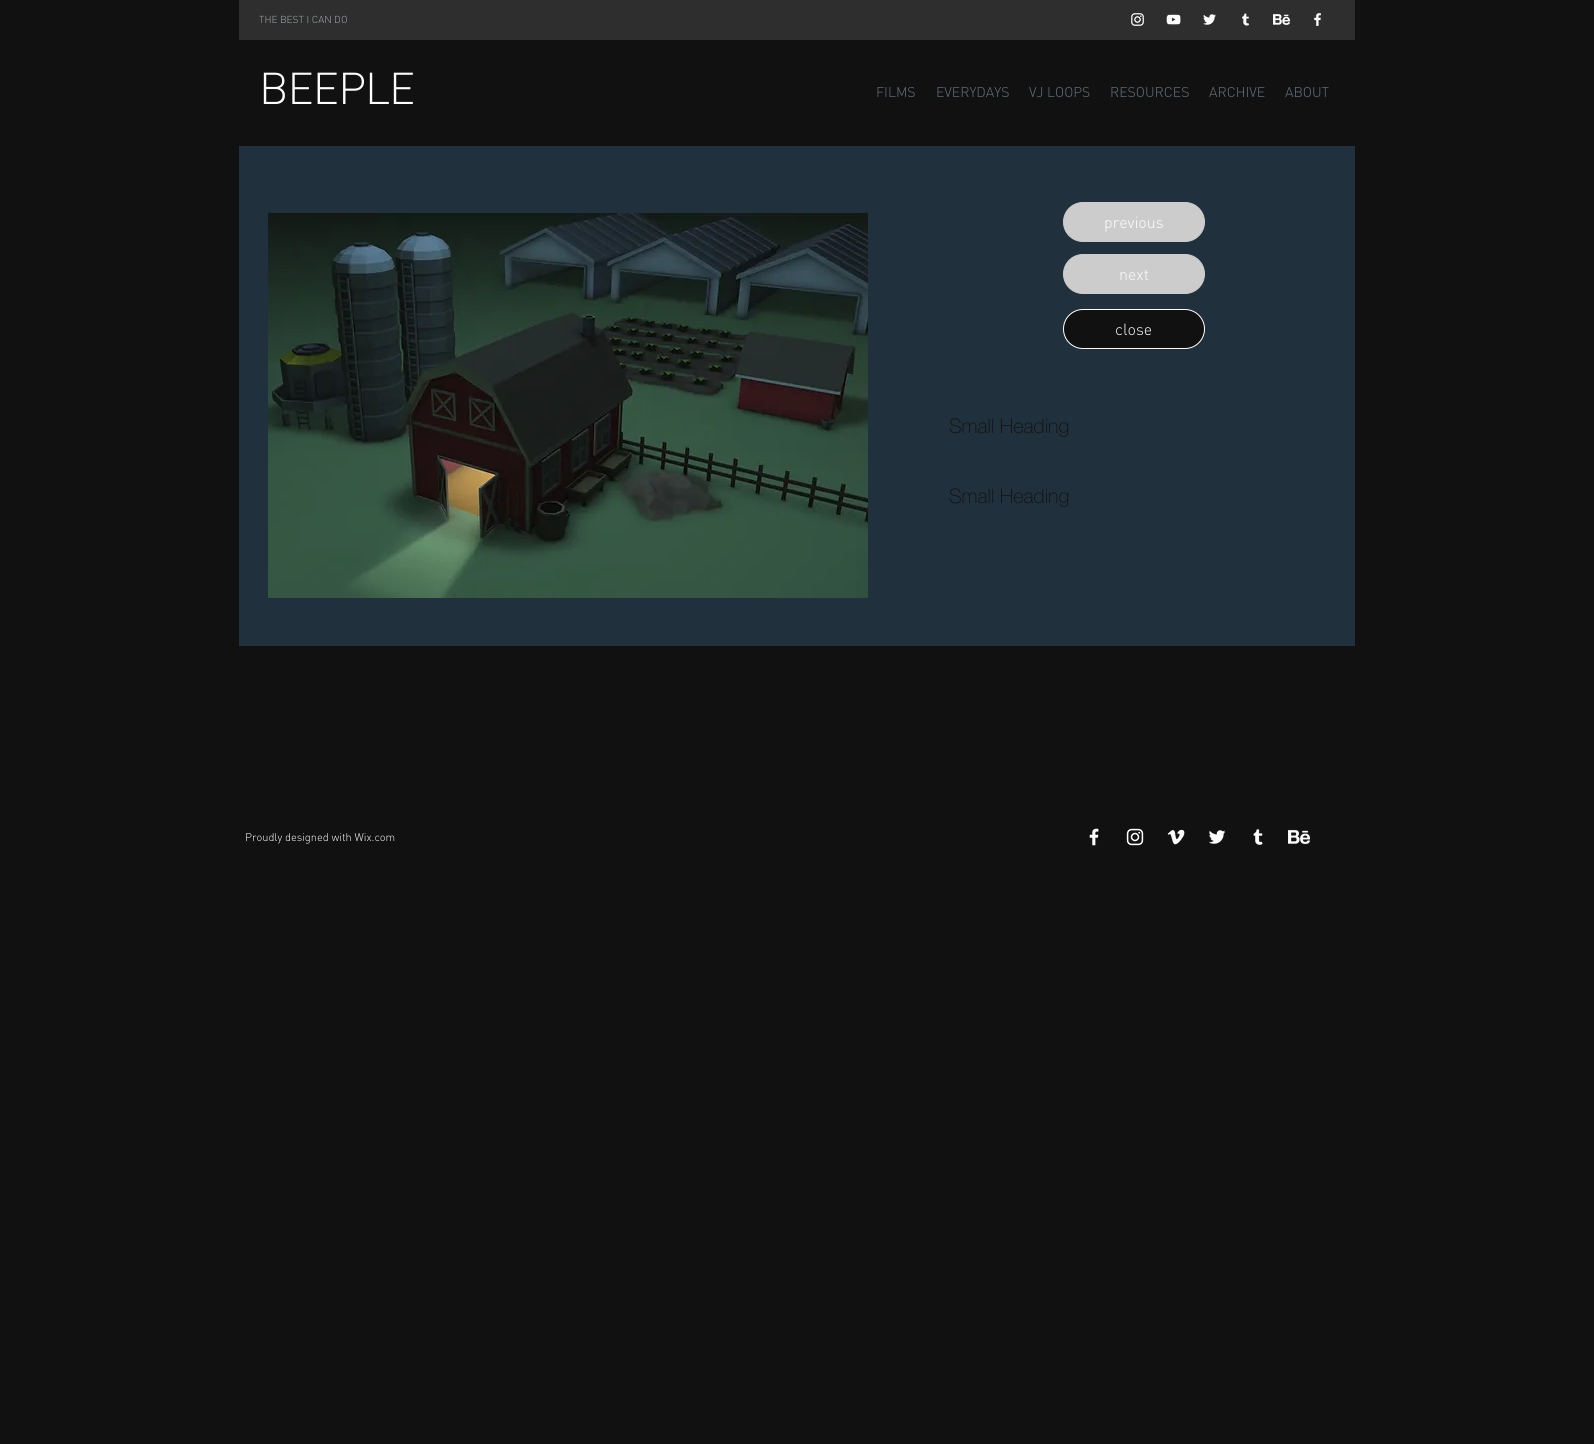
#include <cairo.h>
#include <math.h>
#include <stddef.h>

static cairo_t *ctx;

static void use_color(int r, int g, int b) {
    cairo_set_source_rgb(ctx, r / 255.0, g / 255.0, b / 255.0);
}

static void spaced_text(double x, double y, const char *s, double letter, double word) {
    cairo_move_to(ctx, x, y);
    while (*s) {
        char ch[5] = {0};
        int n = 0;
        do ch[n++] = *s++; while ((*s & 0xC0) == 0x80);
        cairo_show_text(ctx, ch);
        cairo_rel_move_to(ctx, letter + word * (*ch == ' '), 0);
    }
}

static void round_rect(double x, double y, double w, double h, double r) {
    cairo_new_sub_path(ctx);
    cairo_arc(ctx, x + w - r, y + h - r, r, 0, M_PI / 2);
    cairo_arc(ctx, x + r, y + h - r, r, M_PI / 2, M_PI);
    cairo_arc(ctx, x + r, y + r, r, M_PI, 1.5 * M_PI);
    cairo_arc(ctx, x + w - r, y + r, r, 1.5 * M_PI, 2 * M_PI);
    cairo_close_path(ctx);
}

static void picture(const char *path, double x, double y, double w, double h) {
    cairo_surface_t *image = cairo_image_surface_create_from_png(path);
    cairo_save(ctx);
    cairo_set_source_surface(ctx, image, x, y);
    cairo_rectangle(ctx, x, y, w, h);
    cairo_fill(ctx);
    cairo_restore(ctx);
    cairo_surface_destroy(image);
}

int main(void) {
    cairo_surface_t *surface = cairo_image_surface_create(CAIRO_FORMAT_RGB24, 1594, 1444);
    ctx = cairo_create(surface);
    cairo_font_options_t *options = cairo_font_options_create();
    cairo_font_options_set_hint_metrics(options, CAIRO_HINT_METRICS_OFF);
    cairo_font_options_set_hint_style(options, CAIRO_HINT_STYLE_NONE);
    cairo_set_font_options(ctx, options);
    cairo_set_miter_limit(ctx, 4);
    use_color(17, 17, 17);
    cairo_paint(ctx);
    use_color(47, 46, 46);
    cairo_rectangle(ctx, 239, 0, 1116, 40);
    cairo_fill(ctx);
    cairo_select_font_face(ctx, "DIN Light", CAIRO_FONT_SLANT_NORMAL, CAIRO_FONT_WEIGHT_NORMAL);
    cairo_set_font_size(ctx, 10);
    use_color(163, 171, 176);
    cairo_move_to(ctx, 259, 23);
    cairo_show_text(ctx, "THE BEST I CAN DO");
    picture("img1.png", 1131, 13, 13, 13);
    picture("img2.png", 1166, 14, 15, 11);
    picture("img3.png", 1203, 14, 13, 11);
    picture("img4.png", 1242, 13, 7, 13);
    picture("img5.png", 1273, 14, 17, 11);
    picture("img6.png", 1314, 13, 7, 13);
    cairo_set_font_size(ctx, 44);
    use_color(255, 255, 255);
    spaced_text(259, 104, "BEEPLE", -1, 0);
    cairo_set_font_size(ctx, 14);
    use_color(102, 115, 124);
    cairo_move_to(ctx, 876, 97);
    cairo_show_text(ctx, "FILMS");
    cairo_move_to(ctx, 936, 97);
    cairo_show_text(ctx, "EVERYDAYS");
    cairo_move_to(ctx, 1029, 97);
    cairo_show_text(ctx, "VJ LOOPS");
    cairo_move_to(ctx, 1110, 97);
    cairo_show_text(ctx, "RESOURCES");
    cairo_move_to(ctx, 1209, 97);
    cairo_show_text(ctx, "ARCHIVE");
    cairo_move_to(ctx, 1285, 97);
    cairo_show_text(ctx, "ABOUT");
    use_color(32, 48, 60);
    cairo_rectangle(ctx, 239, 146, 1116, 500);
    cairo_fill(ctx);
    picture("img7.png", 268, 213, 600, 385);
    use_color(204, 204, 204);
    round_rect(1063.5, 202.5, 141, 39, 19.5);
    cairo_fill_preserve(ctx);
    cairo_set_line_width(ctx, 1);
    cairo_stroke(ctx);
    cairo_set_font_size(ctx, 16);
    use_color(255, 255, 255);
    cairo_move_to(ctx, 1104, 228);
    cairo_show_text(ctx, "previous");
    use_color(204, 204, 204);
    round_rect(1063.5, 254.5, 141, 39, 19.5);
    cairo_fill_preserve(ctx);
    cairo_stroke(ctx);
    use_color(255, 255, 255);
    cairo_move_to(ctx, 1119, 280);
    cairo_show_text(ctx, "next");
    use_color(17, 17, 17);
    round_rect(1063.5, 309.5, 141, 39, 19.5);
    cairo_fill_preserve(ctx);
    use_color(255, 255, 255);
    cairo_stroke(ctx);
    cairo_move_to(ctx, 1115, 335);
    cairo_show_text(ctx, "close");
    cairo_select_font_face(ctx, "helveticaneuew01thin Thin", CAIRO_FONT_SLANT_NORMAL, CAIRO_FONT_WEIGHT_NORMAL);
    cairo_set_font_size(ctx, 20);
    use_color(17, 17, 17);
    cairo_move_to(ctx, 949, 433);
    cairo_show_text(ctx, "Small Heading");
    cairo_move_to(ctx, 949, 503);
    cairo_show_text(ctx, "Small Heading");
    cairo_select_font_face(ctx, "DIN Light", CAIRO_FONT_SLANT_NORMAL, CAIRO_FONT_WEIGHT_NORMAL);
    cairo_set_font_size(ctx, 11);
    use_color(255, 255, 255);
    cairo_move_to(ctx, 245, 841);
    cairo_show_text(ctx, "Proudly designed with Wix.com");
    picture("img8.png", 1089, 828, 10, 18);
    picture("img9.png", 1126, 828, 18, 18);
    picture("img10.png", 1167, 829, 18, 16);
    picture("img11.png", 1209, 830, 17, 14);
    picture("img12.png", 1253, 829, 10, 16);
    picture("img13.png", 1288, 829, 22, 16);
    cairo_surface_write_to_png(surface, "result.png");
    cairo_font_options_destroy(options);
    cairo_destroy(ctx);
    cairo_surface_destroy(surface);
    return 0;
}
